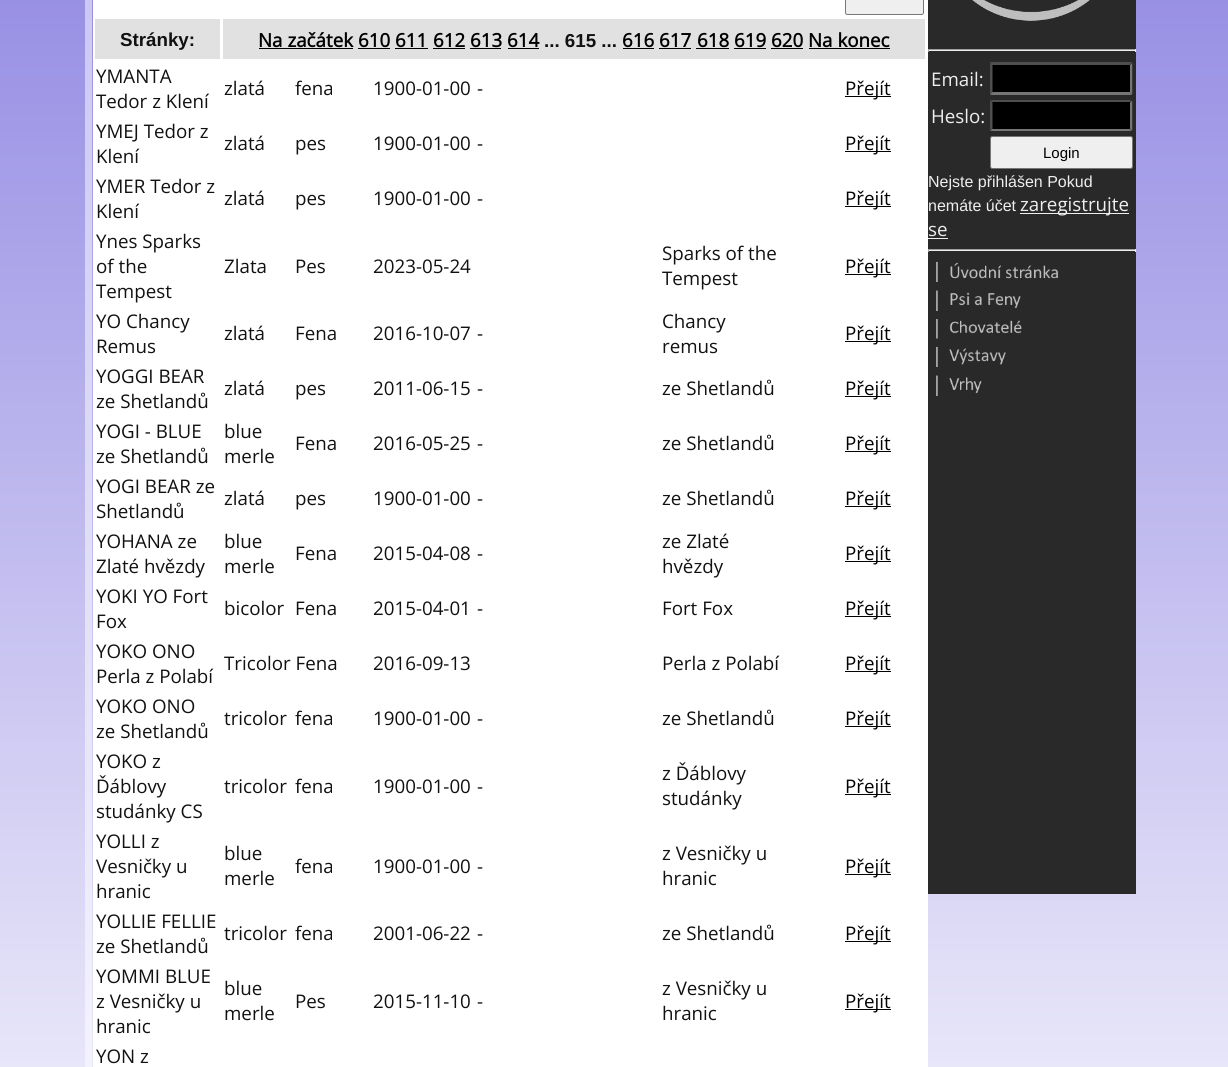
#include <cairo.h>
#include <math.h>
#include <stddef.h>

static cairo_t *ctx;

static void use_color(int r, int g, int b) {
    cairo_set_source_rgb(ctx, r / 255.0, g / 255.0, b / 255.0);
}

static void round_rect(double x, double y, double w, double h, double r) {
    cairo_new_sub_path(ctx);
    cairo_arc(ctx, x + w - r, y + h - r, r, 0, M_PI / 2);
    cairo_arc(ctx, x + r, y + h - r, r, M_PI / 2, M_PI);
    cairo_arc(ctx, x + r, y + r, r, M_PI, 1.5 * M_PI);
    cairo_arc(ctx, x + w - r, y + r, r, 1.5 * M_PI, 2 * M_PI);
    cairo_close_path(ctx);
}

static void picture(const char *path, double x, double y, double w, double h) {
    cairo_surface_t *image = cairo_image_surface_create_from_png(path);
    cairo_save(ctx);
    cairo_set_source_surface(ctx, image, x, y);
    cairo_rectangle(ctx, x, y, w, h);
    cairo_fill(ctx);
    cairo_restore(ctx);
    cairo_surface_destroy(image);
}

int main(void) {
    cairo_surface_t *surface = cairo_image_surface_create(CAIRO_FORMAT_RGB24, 1228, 1067);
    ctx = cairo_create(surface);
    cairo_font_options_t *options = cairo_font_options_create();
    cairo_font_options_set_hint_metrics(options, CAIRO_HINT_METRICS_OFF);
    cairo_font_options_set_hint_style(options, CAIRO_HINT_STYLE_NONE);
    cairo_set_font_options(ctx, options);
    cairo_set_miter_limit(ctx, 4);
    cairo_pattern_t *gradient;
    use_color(255, 255, 255);
    cairo_paint(ctx);
    gradient = cairo_pattern_create_linear(614, -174, 614, 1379);
    cairo_pattern_add_color_stop_rgba(gradient, 0, 0.549, 0.51, 0.882, 1);
    cairo_pattern_add_color_stop_rgba(gradient, 1, 1, 1, 1, 1);
    cairo_set_source(ctx, gradient);
    cairo_pattern_destroy(gradient);
    cairo_rectangle(ctx, 0, 0, 1228, 1067);
    cairo_fill(ctx);
    cairo_set_source_rgba(ctx, 1, 1, 1, 0.5);
    cairo_new_path(ctx);
    cairo_move_to(ctx, 85, -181);
    cairo_line_to(ctx, 85, 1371);
    cairo_line_to(ctx, 92, 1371);
    cairo_line_to(ctx, 92, -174);
    cairo_line_to(ctx, 920, -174);
    cairo_line_to(ctx, 920, -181);
    cairo_close_path(ctx);
    cairo_fill(ctx);
    use_color(255, 255, 255);
    cairo_rectangle(ctx, 93, 0, 835, 1067);
    cairo_fill(ctx);
    use_color(239, 239, 239);
    round_rect(845.5, -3.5, 78, 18, 2);
    cairo_fill_preserve(ctx);
    use_color(118, 118, 118);
    cairo_set_line_width(ctx, 1);
    cairo_stroke(ctx);
    use_color(225, 225, 225);
    cairo_rectangle(ctx, 95, 19, 125, 40);
    cairo_fill(ctx);
    cairo_select_font_face(ctx, "Liberation Sans", CAIRO_FONT_SLANT_NORMAL, CAIRO_FONT_WEIGHT_BOLD);
    cairo_set_font_size(ctx, 18.75);
    use_color(17, 17, 17);
    cairo_move_to(ctx, 120, 46);
    cairo_show_text(ctx, "Stránky:");
    use_color(225, 225, 225);
    cairo_rectangle(ctx, 223, 19, 702, 40);
    cairo_fill(ctx);
    cairo_select_font_face(ctx, "Open Sans", CAIRO_FONT_SLANT_NORMAL, CAIRO_FONT_WEIGHT_BOLD);
    use_color(0, 0, 0);
    cairo_move_to(ctx, 258, 47);
    cairo_show_text(ctx, "Na začátek");
    cairo_rectangle(ctx, 259, 48, 94, 1);
    cairo_fill(ctx);
    cairo_move_to(ctx, 358, 47);
    cairo_show_text(ctx, "610");
    cairo_rectangle(ctx, 358, 48, 32, 1);
    cairo_fill(ctx);
    cairo_move_to(ctx, 395, 47);
    cairo_show_text(ctx, "611");
    cairo_rectangle(ctx, 395, 48, 33, 1);
    cairo_fill(ctx);
    cairo_move_to(ctx, 433, 47);
    cairo_show_text(ctx, "612");
    cairo_rectangle(ctx, 433, 48, 32, 1);
    cairo_fill(ctx);
    cairo_move_to(ctx, 470, 47);
    cairo_show_text(ctx, "613");
    cairo_rectangle(ctx, 470, 48, 31, 1);
    cairo_fill(ctx);
    cairo_move_to(ctx, 507, 47);
    cairo_show_text(ctx, "614");
    cairo_rectangle(ctx, 508, 48, 31, 1);
    cairo_fill(ctx);
    cairo_select_font_face(ctx, "Liberation Sans", CAIRO_FONT_SLANT_NORMAL, CAIRO_FONT_WEIGHT_BOLD);
    use_color(17, 17, 17);
    cairo_move_to(ctx, 544, 47);
    cairo_show_text(ctx, "... 615 ...");
    cairo_select_font_face(ctx, "Open Sans", CAIRO_FONT_SLANT_NORMAL, CAIRO_FONT_WEIGHT_BOLD);
    use_color(0, 0, 0);
    cairo_move_to(ctx, 622, 47);
    cairo_show_text(ctx, "616");
    cairo_rectangle(ctx, 623, 48, 31, 1);
    cairo_fill(ctx);
    cairo_move_to(ctx, 659, 47);
    cairo_show_text(ctx, "617");
    cairo_rectangle(ctx, 659, 48, 32, 1);
    cairo_fill(ctx);
    cairo_move_to(ctx, 697, 47);
    cairo_show_text(ctx, "618");
    cairo_rectangle(ctx, 696, 48, 33, 1);
    cairo_fill(ctx);
    cairo_move_to(ctx, 734, 47);
    cairo_show_text(ctx, "619");
    cairo_rectangle(ctx, 734, 48, 32, 1);
    cairo_fill(ctx);
    cairo_move_to(ctx, 771, 47);
    cairo_show_text(ctx, "620");
    cairo_rectangle(ctx, 771, 48, 32, 1);
    cairo_fill(ctx);
    cairo_move_to(ctx, 808, 47);
    cairo_show_text(ctx, "Na konec");
    cairo_rectangle(ctx, 809, 48, 81, 1);
    cairo_fill(ctx);
    cairo_select_font_face(ctx, "Open Sans", CAIRO_FONT_SLANT_NORMAL, CAIRO_FONT_WEIGHT_NORMAL);
    use_color(17, 17, 17);
    cairo_move_to(ctx, 96, 83);
    cairo_show_text(ctx, "YMANTA");
    cairo_move_to(ctx, 96, 108);
    cairo_show_text(ctx, "Tedor z Klení");
    cairo_move_to(ctx, 224, 95);
    cairo_show_text(ctx, "zlatá");
    cairo_move_to(ctx, 295, 95);
    cairo_show_text(ctx, "fena");
    cairo_move_to(ctx, 373, 95);
    cairo_show_text(ctx, "1900-01-00");
    cairo_move_to(ctx, 477, 95);
    cairo_show_text(ctx, "-");
    use_color(0, 0, 0);
    cairo_rectangle(ctx, 845, 96, 46, 1);
    cairo_fill(ctx);
    cairo_move_to(ctx, 845, 95);
    cairo_show_text(ctx, "Přejít");
    use_color(17, 17, 17);
    cairo_move_to(ctx, 96, 138);
    cairo_show_text(ctx, "YMEJ Tedor z");
    cairo_move_to(ctx, 96, 163);
    cairo_show_text(ctx, "Klení");
    cairo_move_to(ctx, 224, 150);
    cairo_show_text(ctx, "zlatá");
    cairo_move_to(ctx, 295, 150);
    cairo_show_text(ctx, "pes");
    cairo_move_to(ctx, 373, 150);
    cairo_show_text(ctx, "1900-01-00");
    cairo_move_to(ctx, 477, 150);
    cairo_show_text(ctx, "-");
    use_color(0, 0, 0);
    cairo_rectangle(ctx, 845, 151, 46, 1);
    cairo_fill(ctx);
    cairo_move_to(ctx, 845, 150);
    cairo_show_text(ctx, "Přejít");
    use_color(17, 17, 17);
    cairo_move_to(ctx, 96, 193);
    cairo_show_text(ctx, "YMER Tedor z");
    cairo_move_to(ctx, 96, 218);
    cairo_show_text(ctx, "Klení");
    cairo_move_to(ctx, 224, 205);
    cairo_show_text(ctx, "zlatá");
    cairo_move_to(ctx, 295, 205);
    cairo_show_text(ctx, "pes");
    cairo_move_to(ctx, 373, 205);
    cairo_show_text(ctx, "1900-01-00");
    cairo_move_to(ctx, 477, 205);
    cairo_show_text(ctx, "-");
    use_color(0, 0, 0);
    cairo_rectangle(ctx, 845, 206, 46, 1);
    cairo_fill(ctx);
    cairo_move_to(ctx, 845, 205);
    cairo_show_text(ctx, "Přejít");
    use_color(17, 17, 17);
    cairo_move_to(ctx, 96, 248);
    cairo_show_text(ctx, "Ynes Sparks");
    cairo_move_to(ctx, 96, 273);
    cairo_show_text(ctx, "of the");
    cairo_move_to(ctx, 96, 298);
    cairo_show_text(ctx, "Tempest");
    cairo_move_to(ctx, 224, 273);
    cairo_show_text(ctx, "Zlata");
    cairo_move_to(ctx, 295, 273);
    cairo_show_text(ctx, "Pes");
    cairo_move_to(ctx, 373, 273);
    cairo_show_text(ctx, "2023-05-24");
    cairo_move_to(ctx, 662, 260);
    cairo_show_text(ctx, "Sparks of the");
    cairo_move_to(ctx, 662, 285);
    cairo_show_text(ctx, "Tempest");
    use_color(0, 0, 0);
    cairo_rectangle(ctx, 845, 274, 46, 1);
    cairo_fill(ctx);
    cairo_move_to(ctx, 845, 273);
    cairo_show_text(ctx, "Přejít");
    use_color(17, 17, 17);
    cairo_move_to(ctx, 96, 328);
    cairo_show_text(ctx, "YO Chancy");
    cairo_move_to(ctx, 96, 353);
    cairo_show_text(ctx, "Remus");
    cairo_move_to(ctx, 224, 340);
    cairo_show_text(ctx, "zlatá");
    cairo_move_to(ctx, 295, 340);
    cairo_show_text(ctx, "Fena");
    cairo_move_to(ctx, 373, 340);
    cairo_show_text(ctx, "2016-10-07");
    cairo_move_to(ctx, 477, 340);
    cairo_show_text(ctx, "-");
    cairo_move_to(ctx, 662, 328);
    cairo_show_text(ctx, "Chancy");
    cairo_move_to(ctx, 662, 353);
    cairo_show_text(ctx, "remus");
    use_color(0, 0, 0);
    cairo_rectangle(ctx, 845, 341, 46, 1);
    cairo_fill(ctx);
    cairo_move_to(ctx, 845, 340);
    cairo_show_text(ctx, "Přejít");
    use_color(17, 17, 17);
    cairo_move_to(ctx, 96, 383);
    cairo_show_text(ctx, "YOGGI BEAR");
    cairo_move_to(ctx, 96, 408);
    cairo_show_text(ctx, "ze Shetlandů");
    cairo_move_to(ctx, 224, 395);
    cairo_show_text(ctx, "zlatá");
    cairo_move_to(ctx, 295, 395);
    cairo_show_text(ctx, "pes");
    cairo_move_to(ctx, 373, 395);
    cairo_show_text(ctx, "2011-06-15");
    cairo_move_to(ctx, 477, 395);
    cairo_show_text(ctx, "-");
    cairo_move_to(ctx, 662, 395);
    cairo_show_text(ctx, "ze Shetlandů");
    use_color(0, 0, 0);
    cairo_rectangle(ctx, 845, 396, 46, 1);
    cairo_fill(ctx);
    cairo_move_to(ctx, 845, 395);
    cairo_show_text(ctx, "Přejít");
    use_color(17, 17, 17);
    cairo_move_to(ctx, 96, 438);
    cairo_show_text(ctx, "YOGI - BLUE");
    cairo_move_to(ctx, 96, 463);
    cairo_show_text(ctx, "ze Shetlandů");
    cairo_move_to(ctx, 224, 438);
    cairo_show_text(ctx, "blue");
    cairo_move_to(ctx, 224, 463);
    cairo_show_text(ctx, "merle");
    cairo_move_to(ctx, 295, 450);
    cairo_show_text(ctx, "Fena");
    cairo_move_to(ctx, 373, 450);
    cairo_show_text(ctx, "2016-05-25");
    cairo_move_to(ctx, 477, 450);
    cairo_show_text(ctx, "-");
    cairo_move_to(ctx, 662, 450);
    cairo_show_text(ctx, "ze Shetlandů");
    use_color(0, 0, 0);
    cairo_rectangle(ctx, 845, 451, 46, 1);
    cairo_fill(ctx);
    cairo_move_to(ctx, 845, 450);
    cairo_show_text(ctx, "Přejít");
    use_color(17, 17, 17);
    cairo_move_to(ctx, 96, 493);
    cairo_show_text(ctx, "YOGI BEAR ze");
    cairo_move_to(ctx, 96, 518);
    cairo_show_text(ctx, "Shetlandů");
    cairo_move_to(ctx, 224, 505);
    cairo_show_text(ctx, "zlatá");
    cairo_move_to(ctx, 295, 505);
    cairo_show_text(ctx, "pes");
    cairo_move_to(ctx, 373, 505);
    cairo_show_text(ctx, "1900-01-00");
    cairo_move_to(ctx, 477, 505);
    cairo_show_text(ctx, "-");
    cairo_move_to(ctx, 662, 505);
    cairo_show_text(ctx, "ze Shetlandů");
    use_color(0, 0, 0);
    cairo_rectangle(ctx, 845, 506, 46, 1);
    cairo_fill(ctx);
    cairo_move_to(ctx, 845, 505);
    cairo_show_text(ctx, "Přejít");
    use_color(17, 17, 17);
    cairo_move_to(ctx, 96, 548);
    cairo_show_text(ctx, "YOHANA ze");
    cairo_move_to(ctx, 96, 573);
    cairo_show_text(ctx, "Zlaté hvězdy");
    cairo_move_to(ctx, 224, 548);
    cairo_show_text(ctx, "blue");
    cairo_move_to(ctx, 224, 573);
    cairo_show_text(ctx, "merle");
    cairo_move_to(ctx, 295, 560);
    cairo_show_text(ctx, "Fena");
    cairo_move_to(ctx, 373, 560);
    cairo_show_text(ctx, "2015-04-08");
    cairo_move_to(ctx, 477, 560);
    cairo_show_text(ctx, "-");
    cairo_move_to(ctx, 662, 548);
    cairo_show_text(ctx, "ze Zlaté");
    cairo_move_to(ctx, 662, 573);
    cairo_show_text(ctx, "hvězdy");
    use_color(0, 0, 0);
    cairo_rectangle(ctx, 845, 561, 46, 1);
    cairo_fill(ctx);
    cairo_move_to(ctx, 845, 560);
    cairo_show_text(ctx, "Přejít");
    use_color(17, 17, 17);
    cairo_move_to(ctx, 96, 603);
    cairo_show_text(ctx, "YOKI YO Fort");
    cairo_move_to(ctx, 96, 628);
    cairo_show_text(ctx, "Fox");
    cairo_move_to(ctx, 224, 615);
    cairo_show_text(ctx, "bicolor");
    cairo_move_to(ctx, 295, 615);
    cairo_show_text(ctx, "Fena");
    cairo_move_to(ctx, 373, 615);
    cairo_show_text(ctx, "2015-04-01");
    cairo_move_to(ctx, 477, 615);
    cairo_show_text(ctx, "-");
    cairo_move_to(ctx, 662, 615);
    cairo_show_text(ctx, "Fort Fox");
    use_color(0, 0, 0);
    cairo_rectangle(ctx, 845, 616, 46, 1);
    cairo_fill(ctx);
    cairo_move_to(ctx, 845, 615);
    cairo_show_text(ctx, "Přejít");
    use_color(17, 17, 17);
    cairo_move_to(ctx, 96, 658);
    cairo_show_text(ctx, "YOKO ONO");
    cairo_move_to(ctx, 96, 683);
    cairo_show_text(ctx, "Perla z Polabí");
    cairo_move_to(ctx, 224, 670);
    cairo_show_text(ctx, "Tricolor Fena");
    cairo_move_to(ctx, 373, 670);
    cairo_show_text(ctx, "2016-09-13");
    cairo_move_to(ctx, 662, 670);
    cairo_show_text(ctx, "Perla z Polabí");
    use_color(0, 0, 0);
    cairo_rectangle(ctx, 845, 671, 46, 1);
    cairo_fill(ctx);
    cairo_move_to(ctx, 845, 670);
    cairo_show_text(ctx, "Přejít");
    use_color(17, 17, 17);
    cairo_move_to(ctx, 96, 713);
    cairo_show_text(ctx, "YOKO ONO");
    cairo_move_to(ctx, 96, 738);
    cairo_show_text(ctx, "ze Shetlandů");
    cairo_move_to(ctx, 224, 725);
    cairo_show_text(ctx, "tricolor");
    cairo_move_to(ctx, 295, 725);
    cairo_show_text(ctx, "fena");
    cairo_move_to(ctx, 373, 725);
    cairo_show_text(ctx, "1900-01-00");
    cairo_move_to(ctx, 477, 725);
    cairo_show_text(ctx, "-");
    cairo_move_to(ctx, 662, 725);
    cairo_show_text(ctx, "ze Shetlandů");
    use_color(0, 0, 0);
    cairo_rectangle(ctx, 845, 726, 46, 1);
    cairo_fill(ctx);
    cairo_move_to(ctx, 845, 725);
    cairo_show_text(ctx, "Přejít");
    use_color(17, 17, 17);
    cairo_move_to(ctx, 96, 768);
    cairo_show_text(ctx, "YOKO z");
    cairo_move_to(ctx, 96, 793);
    cairo_show_text(ctx, "Ďáblovy");
    cairo_move_to(ctx, 96, 818);
    cairo_show_text(ctx, "studánky CS");
    cairo_move_to(ctx, 224, 793);
    cairo_show_text(ctx, "tricolor");
    cairo_move_to(ctx, 295, 793);
    cairo_show_text(ctx, "fena");
    cairo_move_to(ctx, 373, 793);
    cairo_show_text(ctx, "1900-01-00");
    cairo_move_to(ctx, 477, 793);
    cairo_show_text(ctx, "-");
    cairo_move_to(ctx, 662, 780);
    cairo_show_text(ctx, "z Ďáblovy");
    cairo_move_to(ctx, 662, 805);
    cairo_show_text(ctx, "studánky");
    use_color(0, 0, 0);
    cairo_rectangle(ctx, 845, 794, 46, 1);
    cairo_fill(ctx);
    cairo_move_to(ctx, 845, 793);
    cairo_show_text(ctx, "Přejít");
    use_color(17, 17, 17);
    cairo_move_to(ctx, 96, 848);
    cairo_show_text(ctx, "YOLLI z");
    cairo_move_to(ctx, 96, 873);
    cairo_show_text(ctx, "Vesničky u");
    cairo_move_to(ctx, 96, 898);
    cairo_show_text(ctx, "hranic");
    cairo_move_to(ctx, 224, 860);
    cairo_show_text(ctx, "blue");
    cairo_move_to(ctx, 224, 885);
    cairo_show_text(ctx, "merle");
    cairo_move_to(ctx, 295, 873);
    cairo_show_text(ctx, "fena");
    cairo_move_to(ctx, 373, 873);
    cairo_show_text(ctx, "1900-01-00");
    cairo_move_to(ctx, 477, 873);
    cairo_show_text(ctx, "-");
    cairo_move_to(ctx, 662, 860);
    cairo_show_text(ctx, "z Vesničky u");
    cairo_move_to(ctx, 662, 885);
    cairo_show_text(ctx, "hranic");
    use_color(0, 0, 0);
    cairo_rectangle(ctx, 845, 874, 46, 1);
    cairo_fill(ctx);
    cairo_move_to(ctx, 845, 873);
    cairo_show_text(ctx, "Přejít");
    use_color(17, 17, 17);
    cairo_move_to(ctx, 96, 928);
    cairo_show_text(ctx, "YOLLIE FELLIE");
    cairo_move_to(ctx, 96, 953);
    cairo_show_text(ctx, "ze Shetlandů");
    cairo_move_to(ctx, 224, 940);
    cairo_show_text(ctx, "tricolor");
    cairo_move_to(ctx, 295, 940);
    cairo_show_text(ctx, "fena");
    cairo_move_to(ctx, 373, 940);
    cairo_show_text(ctx, "2001-06-22");
    cairo_move_to(ctx, 477, 940);
    cairo_show_text(ctx, "-");
    cairo_move_to(ctx, 662, 940);
    cairo_show_text(ctx, "ze Shetlandů");
    use_color(0, 0, 0);
    cairo_rectangle(ctx, 845, 941, 46, 1);
    cairo_fill(ctx);
    cairo_move_to(ctx, 845, 940);
    cairo_show_text(ctx, "Přejít");
    use_color(17, 17, 17);
    cairo_move_to(ctx, 96, 983);
    cairo_show_text(ctx, "YOMMI BLUE");
    cairo_move_to(ctx, 96, 1008);
    cairo_show_text(ctx, "z Vesničky u");
    cairo_move_to(ctx, 96, 1033);
    cairo_show_text(ctx, "hranic");
    cairo_move_to(ctx, 224, 995);
    cairo_show_text(ctx, "blue");
    cairo_move_to(ctx, 224, 1020);
    cairo_show_text(ctx, "merle");
    cairo_move_to(ctx, 295, 1008);
    cairo_show_text(ctx, "Pes");
    cairo_move_to(ctx, 373, 1008);
    cairo_show_text(ctx, "2015-11-10");
    cairo_move_to(ctx, 477, 1008);
    cairo_show_text(ctx, "-");
    cairo_move_to(ctx, 662, 995);
    cairo_show_text(ctx, "z Vesničky u");
    cairo_move_to(ctx, 662, 1020);
    cairo_show_text(ctx, "hranic");
    use_color(0, 0, 0);
    cairo_rectangle(ctx, 845, 1009, 46, 1);
    cairo_fill(ctx);
    cairo_move_to(ctx, 845, 1008);
    cairo_show_text(ctx, "Přejít");
    use_color(17, 17, 17);
    cairo_move_to(ctx, 96, 1063);
    cairo_show_text(ctx, "YON z");
    use_color(41, 41, 41);
    cairo_rectangle(ctx, 928, 0, 208, 894);
    cairo_fill(ctx);
    picture("img1.png", 972, 0, 118, 21);
    use_color(159, 159, 159);
    cairo_rectangle(ctx, 928, 49, 208, 1);
    cairo_fill(ctx);
    use_color(238, 238, 238);
    cairo_rectangle(ctx, 1135, 49, 1, 3);
    cairo_fill(ctx);
    cairo_rectangle(ctx, 928, 50, 208, 1);
    cairo_fill(ctx);
    use_color(159, 159, 159);
    cairo_rectangle(ctx, 928, 49, 1, 3);
    cairo_fill(ctx);
    use_color(238, 238, 238);
    cairo_move_to(ctx, 931, 86);
    cairo_show_text(ctx, "Email:");
    use_color(0, 0, 0);
    cairo_rectangle(ctx, 990, 63, 143, 32);
    cairo_fill(ctx);
    use_color(79, 79, 79);
    cairo_new_path(ctx);
    cairo_move_to(ctx, 990, 62);
    cairo_line_to(ctx, 1132, 62);
    cairo_line_to(ctx, 1130, 65);
    cairo_line_to(ctx, 992, 65);
    cairo_close_path(ctx);
    cairo_fill(ctx);
    use_color(118, 118, 118);
    cairo_new_path(ctx);
    cairo_move_to(ctx, 1132.5, 62.5);
    cairo_line_to(ctx, 1132.5, 95);
    cairo_line_to(ctx, 1130, 92.5);
    cairo_line_to(ctx, 1130, 65);
    cairo_close_path(ctx);
    cairo_fill(ctx);
    cairo_new_path(ctx);
    cairo_move_to(ctx, 1132, 95);
    cairo_line_to(ctx, 990, 95);
    cairo_line_to(ctx, 992, 92);
    cairo_line_to(ctx, 1130, 92);
    cairo_close_path(ctx);
    cairo_fill(ctx);
    use_color(79, 79, 79);
    cairo_new_path(ctx);
    cairo_move_to(ctx, 990, 95);
    cairo_line_to(ctx, 990, 62.5);
    cairo_line_to(ctx, 992.5, 65);
    cairo_line_to(ctx, 992.5, 92.5);
    cairo_close_path(ctx);
    cairo_fill(ctx);
    use_color(238, 238, 238);
    cairo_move_to(ctx, 931, 123);
    cairo_show_text(ctx, "Heslo:");
    use_color(0, 0, 0);
    cairo_rectangle(ctx, 990, 100, 143, 31);
    cairo_fill(ctx);
    use_color(79, 79, 79);
    cairo_new_path(ctx);
    cairo_move_to(ctx, 990, 100);
    cairo_line_to(ctx, 1132, 100);
    cairo_line_to(ctx, 1130, 102);
    cairo_line_to(ctx, 992, 102);
    cairo_close_path(ctx);
    cairo_fill(ctx);
    use_color(118, 118, 118);
    cairo_new_path(ctx);
    cairo_move_to(ctx, 1132.5, 100);
    cairo_line_to(ctx, 1132.5, 131);
    cairo_line_to(ctx, 1130, 129);
    cairo_line_to(ctx, 1130, 102.5);
    cairo_close_path(ctx);
    cairo_fill(ctx);
    cairo_new_path(ctx);
    cairo_move_to(ctx, 1132, 131);
    cairo_line_to(ctx, 990, 131);
    cairo_line_to(ctx, 992, 129);
    cairo_line_to(ctx, 1130, 129);
    cairo_close_path(ctx);
    cairo_fill(ctx);
    use_color(79, 79, 79);
    cairo_new_path(ctx);
    cairo_move_to(ctx, 990, 131);
    cairo_line_to(ctx, 990, 100);
    cairo_line_to(ctx, 992.5, 102.5);
    cairo_line_to(ctx, 992.5, 129);
    cairo_close_path(ctx);
    cairo_fill(ctx);
    use_color(239, 239, 239);
    round_rect(990.5, 136.5, 142, 32, 2);
    cairo_fill_preserve(ctx);
    use_color(118, 118, 118);
    cairo_stroke(ctx);
    cairo_select_font_face(ctx, "Liberation Sans", CAIRO_FONT_SLANT_NORMAL, CAIRO_FONT_WEIGHT_NORMAL);
    cairo_set_font_size(ctx, 15);
    use_color(0, 0, 0);
    cairo_move_to(ctx, 1043, 158);
    cairo_show_text(ctx, "Login");
    cairo_set_font_size(ctx, 16);
    use_color(238, 238, 238);
    cairo_move_to(ctx, 928, 187);
    cairo_show_text(ctx, "Nejste přihlášen Pokud");
    cairo_move_to(ctx, 928, 211);
    cairo_show_text(ctx, "nemáte účet");
    cairo_rectangle(ctx, 1020, 213, 109, 1);
    cairo_fill(ctx);
    cairo_select_font_face(ctx, "Open Sans", CAIRO_FONT_SLANT_NORMAL, CAIRO_FONT_WEIGHT_NORMAL);
    cairo_set_font_size(ctx, 18.75);
    cairo_move_to(ctx, 1020, 211);
    cairo_show_text(ctx, "zaregistrujte");
    cairo_move_to(ctx, 928, 236);
    cairo_show_text(ctx, "se");
    cairo_rectangle(ctx, 928, 238, 20, 1);
    cairo_fill(ctx);
    use_color(159, 159, 159);
    cairo_rectangle(ctx, 928, 249, 208, 1);
    cairo_fill(ctx);
    use_color(238, 238, 238);
    cairo_rectangle(ctx, 1135, 249, 1, 3);
    cairo_fill(ctx);
    cairo_rectangle(ctx, 928, 250, 208, 1);
    cairo_fill(ctx);
    use_color(159, 159, 159);
    cairo_rectangle(ctx, 928, 249, 1, 3);
    cairo_fill(ctx);
    picture("img2.png", 936, 261, 122, 21);
    picture("img3.png", 936, 290, 85, 21);
    picture("img4.png", 936, 319, 86, 20);
    picture("img5.png", 936, 346, 70, 21);
    picture("img6.png", 936, 375, 46, 21);
    cairo_surface_write_to_png(surface, "result.png");
    cairo_font_options_destroy(options);
    cairo_destroy(ctx);
    cairo_surface_destroy(surface);
    return 0;
}
